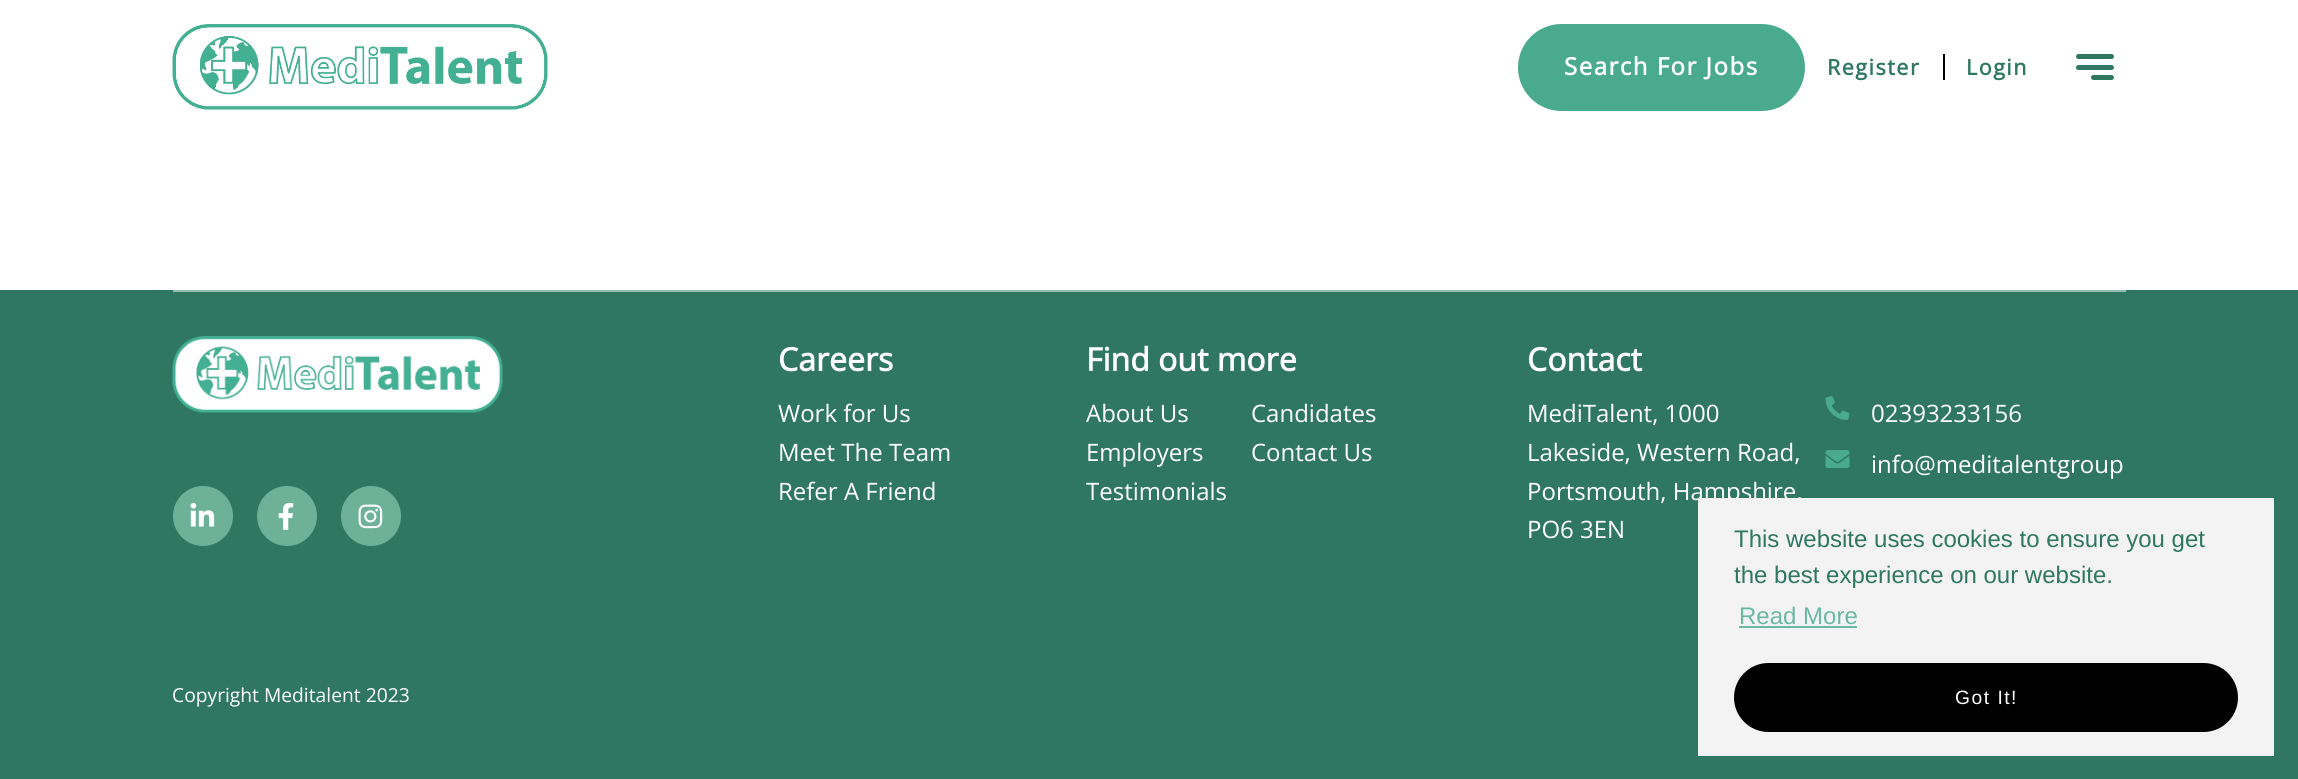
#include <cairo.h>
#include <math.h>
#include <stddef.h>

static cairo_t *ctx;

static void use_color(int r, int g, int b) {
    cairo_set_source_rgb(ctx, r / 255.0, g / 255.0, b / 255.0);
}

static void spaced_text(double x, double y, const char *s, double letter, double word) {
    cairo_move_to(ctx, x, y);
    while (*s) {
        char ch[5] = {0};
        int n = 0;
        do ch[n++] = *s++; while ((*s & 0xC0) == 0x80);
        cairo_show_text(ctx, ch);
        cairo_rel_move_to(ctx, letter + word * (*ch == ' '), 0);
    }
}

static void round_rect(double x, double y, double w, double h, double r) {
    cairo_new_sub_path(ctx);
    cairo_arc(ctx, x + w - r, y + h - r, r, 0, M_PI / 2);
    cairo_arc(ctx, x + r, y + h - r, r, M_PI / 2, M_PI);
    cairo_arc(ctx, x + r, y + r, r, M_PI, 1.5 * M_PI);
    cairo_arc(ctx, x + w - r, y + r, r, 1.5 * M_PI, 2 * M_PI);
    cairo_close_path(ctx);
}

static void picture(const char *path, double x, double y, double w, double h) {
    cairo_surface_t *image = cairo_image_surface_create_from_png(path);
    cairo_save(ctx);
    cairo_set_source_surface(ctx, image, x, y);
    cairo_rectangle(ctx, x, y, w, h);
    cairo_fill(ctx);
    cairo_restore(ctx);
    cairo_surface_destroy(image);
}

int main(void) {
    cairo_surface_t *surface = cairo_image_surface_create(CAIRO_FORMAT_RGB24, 2298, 779);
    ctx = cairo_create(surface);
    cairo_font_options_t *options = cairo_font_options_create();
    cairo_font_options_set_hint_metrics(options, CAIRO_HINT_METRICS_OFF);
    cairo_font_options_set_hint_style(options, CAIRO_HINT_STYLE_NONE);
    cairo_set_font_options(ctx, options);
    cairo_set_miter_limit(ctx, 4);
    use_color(255, 255, 255);
    cairo_paint(ctx);
    picture("img1.png", 172, 24, 376, 86);
    use_color(73, 170, 142);
    round_rect(1519, 25, 285, 85, 42.5);
    cairo_fill_preserve(ctx);
    cairo_stroke(ctx);
    cairo_select_font_face(ctx, "Open Sans", CAIRO_FONT_SLANT_NORMAL, CAIRO_FONT_WEIGHT_BOLD);
    cairo_set_font_size(ctx, 24);
    use_color(255, 255, 255);
    spaced_text(1564, 75, "Search For Jobs", 1.5, 0);
    cairo_set_font_size(ctx, 21.5);
    use_color(47, 119, 97);
    spaced_text(1827, 75, "Register", 1.5, 0);
    use_color(0, 0, 0);
    cairo_rectangle(ctx, 1943, 54, 2, 26);
    cairo_fill(ctx);
    use_color(47, 119, 97);
    spaced_text(1966, 75, "Login", 1.5, 0);
    round_rect(2076, 65, 38, 5, 2.5);
    cairo_fill(ctx);
    round_rect(2076, 54, 38, 5, 2.5);
    cairo_fill(ctx);
    round_rect(2091, 75, 23, 5, 2.5);
    cairo_fill(ctx);
    cairo_rectangle(ctx, 0, 290, 2298, 489);
    cairo_fill(ctx);
    use_color(151, 187, 176);
    cairo_rectangle(ctx, 173, 290, 1953, 2);
    cairo_fill(ctx);
    picture("img2.png", 172, 336, 331, 77);
    use_color(108, 177, 152);
    cairo_arc(ctx, 203, 516, 29, 0, 2 * M_PI);
    cairo_fill_preserve(ctx);
    cairo_stroke(ctx);
    picture("img3.png", 190, 502, 25, 25);
    cairo_arc(ctx, 287, 516, 29, 0, 2 * M_PI);
    cairo_fill_preserve(ctx);
    cairo_stroke(ctx);
    picture("img4.png", 278, 502, 16, 28);
    cairo_arc(ctx, 371, 516, 29, 0, 2 * M_PI);
    cairo_fill_preserve(ctx);
    cairo_stroke(ctx);
    picture("img5.png", 358, 504, 25, 25);
    cairo_set_font_size(ctx, 32);
    use_color(255, 255, 255);
    cairo_move_to(ctx, 778, 371);
    cairo_show_text(ctx, "Careers");
    cairo_select_font_face(ctx, "Open Sans", CAIRO_FONT_SLANT_NORMAL, CAIRO_FONT_WEIGHT_NORMAL);
    cairo_set_font_size(ctx, 24);
    cairo_move_to(ctx, 778, 422);
    cairo_show_text(ctx, "Work for Us");
    cairo_move_to(ctx, 778, 461);
    cairo_show_text(ctx, "Meet The Team");
    cairo_move_to(ctx, 778, 500);
    cairo_show_text(ctx, "Refer A Friend");
    cairo_select_font_face(ctx, "Open Sans", CAIRO_FONT_SLANT_NORMAL, CAIRO_FONT_WEIGHT_BOLD);
    cairo_set_font_size(ctx, 32);
    cairo_move_to(ctx, 1086, 371);
    cairo_show_text(ctx, "Find out more");
    cairo_select_font_face(ctx, "Open Sans", CAIRO_FONT_SLANT_NORMAL, CAIRO_FONT_WEIGHT_NORMAL);
    cairo_set_font_size(ctx, 24);
    cairo_move_to(ctx, 1086, 422);
    cairo_show_text(ctx, "About Us");
    cairo_move_to(ctx, 1251, 422);
    cairo_show_text(ctx, "Candidates");
    cairo_move_to(ctx, 1086, 461);
    cairo_show_text(ctx, "Employers");
    cairo_move_to(ctx, 1251, 461);
    cairo_show_text(ctx, "Contact Us");
    cairo_move_to(ctx, 1086, 500);
    cairo_show_text(ctx, "Testimonials");
    cairo_select_font_face(ctx, "Open Sans", CAIRO_FONT_SLANT_NORMAL, CAIRO_FONT_WEIGHT_BOLD);
    cairo_set_font_size(ctx, 32);
    cairo_move_to(ctx, 1527, 371);
    cairo_show_text(ctx, "Contact");
    cairo_select_font_face(ctx, "Open Sans", CAIRO_FONT_SLANT_NORMAL, CAIRO_FONT_WEIGHT_NORMAL);
    cairo_set_font_size(ctx, 24);
    cairo_move_to(ctx, 1527, 422);
    cairo_show_text(ctx, "MediTalent, 1000");
    cairo_move_to(ctx, 1527, 461);
    cairo_show_text(ctx, "Lakeside, Western Road,");
    cairo_move_to(ctx, 1527, 500);
    cairo_show_text(ctx, "Portsmouth, Hampshire,");
    cairo_move_to(ctx, 1527, 538);
    cairo_show_text(ctx, "PO6 3EN");
    picture("img6.png", 1825, 396, 25, 24);
    cairo_move_to(ctx, 1871, 422);
    cairo_show_text(ctx, "02393233156");
    picture("img7.png", 1825, 450, 25, 18);
    cairo_move_to(ctx, 1871, 473);
    cairo_show_text(ctx, "info@meditalentgroup");
    cairo_set_font_size(ctx, 19.25);
    cairo_move_to(ctx, 172, 702);
    cairo_show_text(ctx, "Copyright Meditalent 2023");
    use_color(243, 243, 243);
    cairo_rectangle(ctx, 1698, 498, 576, 258);
    cairo_fill(ctx);
    cairo_select_font_face(ctx, "Liberation Sans", CAIRO_FONT_SLANT_NORMAL, CAIRO_FONT_WEIGHT_NORMAL);
    cairo_set_font_size(ctx, 24);
    use_color(47, 119, 97);
    cairo_move_to(ctx, 1734, 547);
    cairo_show_text(ctx, "This website uses cookies to ensure you get");
    cairo_move_to(ctx, 1734, 583);
    cairo_show_text(ctx, "the best experience on our website.");
    use_color(107, 185, 162);
    cairo_move_to(ctx, 1739, 624);
    cairo_show_text(ctx, "Read More");
    cairo_rectangle(ctx, 1739, 626, 118, 2);
    cairo_fill(ctx);
    use_color(0, 0, 0);
    round_rect(1734, 663, 504, 69, 34.5);
    cairo_fill(ctx);
    cairo_set_font_size(ctx, 19.25);
    use_color(255, 255, 255);
    spaced_text(1955, 704, "Got It!", 1.5, 0);
    cairo_surface_write_to_png(surface, "result.png");
    cairo_font_options_destroy(options);
    cairo_destroy(ctx);
    cairo_surface_destroy(surface);
    return 0;
}
